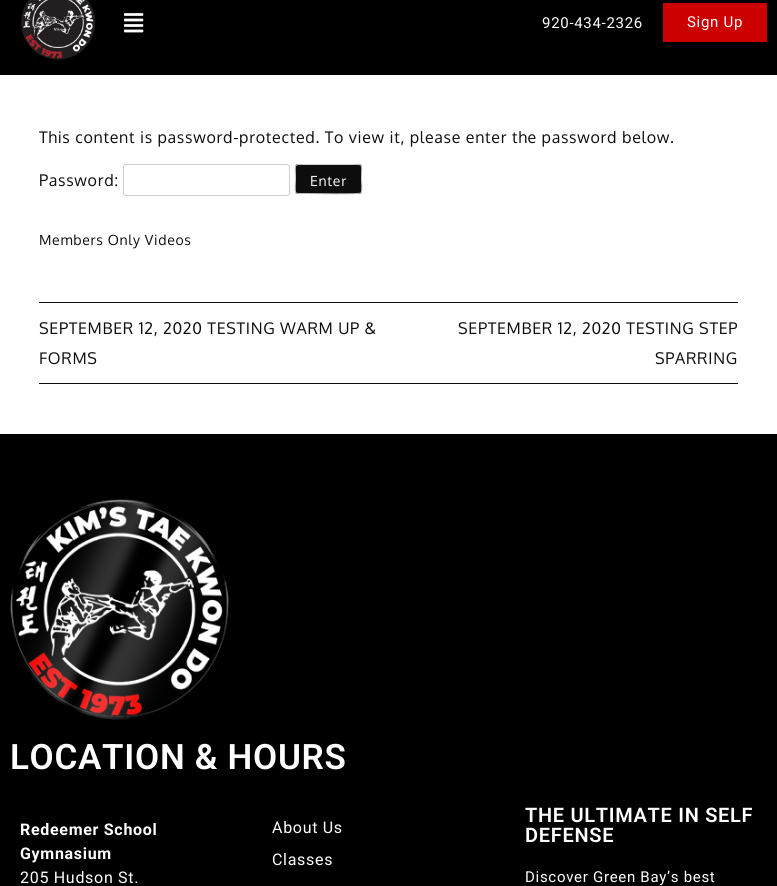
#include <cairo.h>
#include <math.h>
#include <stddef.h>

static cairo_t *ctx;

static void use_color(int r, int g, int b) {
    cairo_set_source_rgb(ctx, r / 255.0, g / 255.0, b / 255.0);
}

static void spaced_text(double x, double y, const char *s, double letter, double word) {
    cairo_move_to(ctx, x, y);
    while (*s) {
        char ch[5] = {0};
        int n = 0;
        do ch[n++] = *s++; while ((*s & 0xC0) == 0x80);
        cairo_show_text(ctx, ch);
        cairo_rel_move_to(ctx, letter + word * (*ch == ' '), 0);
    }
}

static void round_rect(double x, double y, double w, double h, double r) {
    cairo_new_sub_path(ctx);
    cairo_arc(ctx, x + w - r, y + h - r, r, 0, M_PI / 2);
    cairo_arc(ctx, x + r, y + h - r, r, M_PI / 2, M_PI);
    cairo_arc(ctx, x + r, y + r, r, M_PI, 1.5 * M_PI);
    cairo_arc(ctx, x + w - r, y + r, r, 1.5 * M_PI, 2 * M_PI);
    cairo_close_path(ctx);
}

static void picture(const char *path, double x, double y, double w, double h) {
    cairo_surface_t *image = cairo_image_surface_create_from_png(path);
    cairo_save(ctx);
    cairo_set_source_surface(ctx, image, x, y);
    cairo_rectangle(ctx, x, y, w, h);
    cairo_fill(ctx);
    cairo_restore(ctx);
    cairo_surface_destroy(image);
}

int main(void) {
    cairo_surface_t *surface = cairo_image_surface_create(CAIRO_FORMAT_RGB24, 777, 886);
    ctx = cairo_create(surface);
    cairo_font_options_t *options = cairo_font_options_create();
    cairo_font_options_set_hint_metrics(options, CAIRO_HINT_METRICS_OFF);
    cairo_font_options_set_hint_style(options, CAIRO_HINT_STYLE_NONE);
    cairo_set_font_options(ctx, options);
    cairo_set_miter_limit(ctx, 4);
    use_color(255, 255, 255);
    cairo_paint(ctx);
    use_color(0, 0, 0);
    cairo_rectangle(ctx, 0, 0, 777, 75);
    cairo_fill(ctx);
    picture("img1.png", 21, 0, 75, 60);
    picture("img2.png", 124, 13, 20, 20);
    cairo_select_font_face(ctx, "Roboto", CAIRO_FONT_SLANT_NORMAL, CAIRO_FONT_WEIGHT_NORMAL);
    cairo_set_font_size(ctx, 15);
    use_color(255, 255, 255);
    spaced_text(542, 28, "920-434-2326", 0.7, 0);
    use_color(205, 0, 0);
    cairo_rectangle(ctx, 663, 3, 104, 39);
    cairo_fill(ctx);
    use_color(255, 255, 255);
    spaced_text(687, 27, "Sign Up", 0.7, 0);
    cairo_select_font_face(ctx, "Oxygen", CAIRO_FONT_SLANT_NORMAL, CAIRO_FONT_WEIGHT_NORMAL);
    cairo_set_font_size(ctx, 16);
    use_color(13, 13, 13);
    spaced_text(39, 143, "This content is password-protected. To view it, please enter the password below.", 0.7, 0);
    spaced_text(39, 186, "Password:", 0.7, 0);
    round_rect(123.5, 164.5, 166, 31, 2.5);
    use_color(204, 204, 204);
    cairo_set_line_width(ctx, 1);
    cairo_stroke(ctx);
    use_color(13, 13, 13);
    round_rect(295, 164, 67, 30, 3);
    cairo_fill(ctx);
    cairo_new_path(ctx);
    cairo_move_to(ctx, 361, 193);
    cairo_line_to(ctx, 360.5, 193);
    cairo_curve_to(ctx, 358.5, 194.5, 314, 193.5, 308, 193.5);
    cairo_line_to(ctx, 298, 193.5);
    cairo_line_to(ctx, 296, 193);
    use_color(187, 187, 187);
    cairo_stroke(ctx);
    cairo_new_path(ctx);
    cairo_move_to(ctx, 296, 193);
    cairo_curve_to(ctx, 294.5, 191, 295.5, 181.5, 295.5, 179);
    cairo_curve_to(ctx, 295.5, 162.5, 292.5, 164.5, 308, 164.5);
    cairo_line_to(ctx, 349, 164.5);
    cairo_curve_to(ctx, 364.5, 164.5, 361.5, 162.5, 361.5, 179);
    cairo_curve_to(ctx, 361.5, 181.5, 362.5, 191, 361, 193);
    use_color(204, 204, 204);
    cairo_stroke(ctx);
    cairo_set_font_size(ctx, 14);
    use_color(255, 255, 255);
    spaced_text(310, 186, "Enter", 0.7, 0);
    use_color(13, 13, 13);
    spaced_text(39, 245, "Members Only Videos", 0.7, 0);
    cairo_rectangle(ctx, 39, 302, 699, 1);
    cairo_fill(ctx);
    cairo_rectangle(ctx, 39, 383, 699, 1);
    cairo_fill(ctx);
    cairo_set_font_size(ctx, 16);
    spaced_text(39, 334, "SEPTEMBER 12, 2020 TESTING WARM UP &", 0.7, 0);
    spaced_text(39, 364, "FORMS", 0.7, 0);
    spaced_text(458, 334, "SEPTEMBER 12, 2020 TESTING STEP", 0.7, 0);
    spaced_text(655, 364, "SPARRING", 0.7, 0);
    use_color(0, 0, 0);
    cairo_rectangle(ctx, 0, 434, 777, 452);
    cairo_fill(ctx);
    picture("img3.png", 10, 499, 219, 221);
    cairo_select_font_face(ctx, "Roboto SemiBold", CAIRO_FONT_SLANT_NORMAL, CAIRO_FONT_WEIGHT_NORMAL);
    cairo_set_font_size(ctx, 35);
    use_color(255, 255, 255);
    spaced_text(10, 769, "LOCATION & HOURS", 0.7, 0);
    cairo_select_font_face(ctx, "Roboto", CAIRO_FONT_SLANT_NORMAL, CAIRO_FONT_WEIGHT_BOLD);
    cairo_set_font_size(ctx, 16);
    spaced_text(20, 835, "Redeemer School", 0.7, 0);
    spaced_text(20, 859, "Gymnasium", 0.7, 0);
    cairo_select_font_face(ctx, "Roboto", CAIRO_FONT_SLANT_NORMAL, CAIRO_FONT_WEIGHT_NORMAL);
    spaced_text(20, 883, "205 Hudson St.", 0.7, 0);
    spaced_text(272, 833, "About Us", 0.7, 0);
    spaced_text(272, 865, "Classes", 0.7, 0);
    cairo_select_font_face(ctx, "Roboto SemiBold", CAIRO_FONT_SLANT_NORMAL, CAIRO_FONT_WEIGHT_NORMAL);
    cairo_set_font_size(ctx, 20);
    spaced_text(525, 822, "THE ULTIMATE IN SELF", 0.7, 0);
    spaced_text(525, 842, "DEFENSE", 0.7, 0);
    cairo_select_font_face(ctx, "Roboto", CAIRO_FONT_SLANT_NORMAL, CAIRO_FONT_WEIGHT_NORMAL);
    cairo_set_font_size(ctx, 15);
    spaced_text(525, 882, "Discover Green Bay’s best", 0.7, 0);
    cairo_surface_write_to_png(surface, "result.png");
    cairo_font_options_destroy(options);
    cairo_destroy(ctx);
    cairo_surface_destroy(surface);
    return 0;
}
